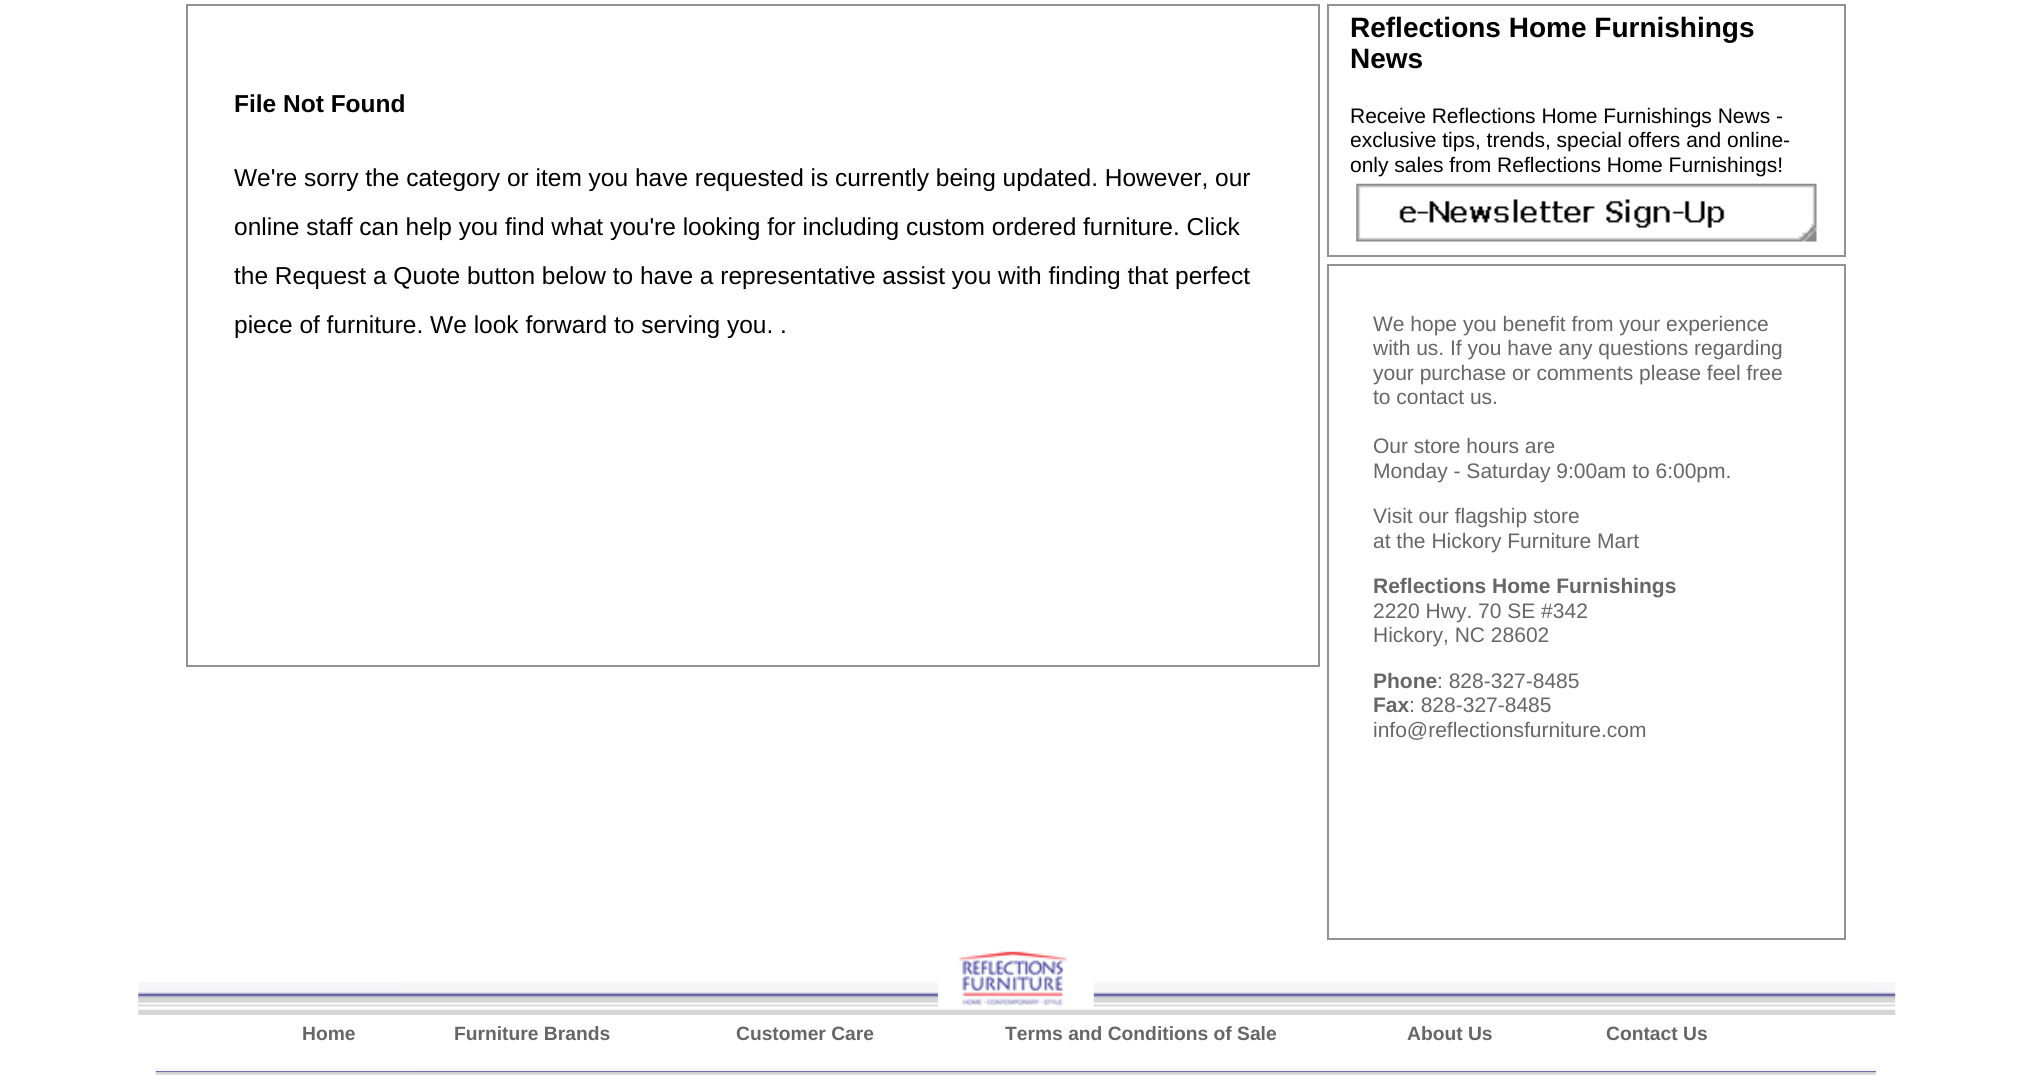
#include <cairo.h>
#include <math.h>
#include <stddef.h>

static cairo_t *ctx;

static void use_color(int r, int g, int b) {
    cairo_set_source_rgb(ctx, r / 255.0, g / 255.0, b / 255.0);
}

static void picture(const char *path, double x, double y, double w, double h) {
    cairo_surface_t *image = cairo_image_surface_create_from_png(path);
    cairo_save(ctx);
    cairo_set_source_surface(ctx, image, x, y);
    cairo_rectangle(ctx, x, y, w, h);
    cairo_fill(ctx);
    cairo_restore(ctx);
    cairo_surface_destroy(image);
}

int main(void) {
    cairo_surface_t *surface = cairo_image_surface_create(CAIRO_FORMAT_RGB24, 2031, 1076);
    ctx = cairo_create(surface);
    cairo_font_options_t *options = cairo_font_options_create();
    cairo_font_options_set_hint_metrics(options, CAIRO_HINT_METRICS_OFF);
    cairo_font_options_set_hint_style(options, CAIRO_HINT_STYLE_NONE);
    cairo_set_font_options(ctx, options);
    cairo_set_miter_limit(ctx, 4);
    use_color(255, 255, 255);
    cairo_paint(ctx);
    cairo_rectangle(ctx, 187, 5, 1132, 661);
    use_color(146, 146, 146);
    cairo_stroke(ctx);
    cairo_select_font_face(ctx, "Liberation Sans", CAIRO_FONT_SLANT_NORMAL, CAIRO_FONT_WEIGHT_BOLD);
    cairo_set_font_size(ctx, 24.5);
    use_color(0, 0, 0);
    cairo_move_to(ctx, 234, 112);
    cairo_show_text(ctx, "File Not Found");
    cairo_select_font_face(ctx, "Liberation Sans", CAIRO_FONT_SLANT_NORMAL, CAIRO_FONT_WEIGHT_NORMAL);
    cairo_move_to(ctx, 234, 186);
    cairo_show_text(ctx, "We're sorry the category or item you have requested is currently being updated. However, our");
    cairo_move_to(ctx, 234, 235);
    cairo_show_text(ctx, "online staff can help you find what you're looking for including custom ordered furniture. Click");
    cairo_move_to(ctx, 234, 284);
    cairo_show_text(ctx, "the Request a Quote button below to have a representative assist you with finding that perfect");
    cairo_move_to(ctx, 234, 333);
    cairo_show_text(ctx, "piece of furniture. We look forward to serving you. .");
    cairo_rectangle(ctx, 1328, 5, 517, 251);
    use_color(146, 146, 146);
    cairo_stroke(ctx);
    cairo_select_font_face(ctx, "Liberation Sans", CAIRO_FONT_SLANT_NORMAL, CAIRO_FONT_WEIGHT_BOLD);
    cairo_set_font_size(ctx, 28);
    use_color(0, 0, 0);
    cairo_move_to(ctx, 1350, 37);
    cairo_show_text(ctx, "Reflections Home Furnishings");
    cairo_move_to(ctx, 1350, 68);
    cairo_show_text(ctx, "News");
    cairo_select_font_face(ctx, "Liberation Sans", CAIRO_FONT_SLANT_NORMAL, CAIRO_FONT_WEIGHT_NORMAL);
    cairo_set_font_size(ctx, 21);
    cairo_move_to(ctx, 1350, 123);
    cairo_show_text(ctx, "Receive Reflections Home Furnishings News -");
    cairo_move_to(ctx, 1350, 147);
    cairo_show_text(ctx, "exclusive tips, trends, special offers and online-");
    cairo_move_to(ctx, 1350, 172);
    cairo_show_text(ctx, "only sales from Reflections Home Furnishings!");
    picture("img1.png", 1356, 183, 461, 59);
    cairo_rectangle(ctx, 1328, 265, 517, 674);
    use_color(146, 146, 146);
    cairo_stroke(ctx);
    use_color(102, 102, 102);
    cairo_move_to(ctx, 1373, 331);
    cairo_show_text(ctx, "We hope you benefit from your experience");
    cairo_move_to(ctx, 1373, 355);
    cairo_show_text(ctx, "with us. If you have any questions regarding");
    cairo_move_to(ctx, 1373, 380);
    cairo_show_text(ctx, "your purchase or comments please feel free");
    cairo_move_to(ctx, 1373, 404);
    cairo_show_text(ctx, "to contact us.");
    cairo_move_to(ctx, 1373, 453);
    cairo_show_text(ctx, "Our store hours are");
    cairo_move_to(ctx, 1373, 478);
    cairo_show_text(ctx, "Monday - Saturday 9:00am to 6:00pm.");
    cairo_move_to(ctx, 1373, 523);
    cairo_show_text(ctx, "Visit our flagship store");
    cairo_move_to(ctx, 1373, 548);
    cairo_show_text(ctx, "at the Hickory Furniture Mart");
    cairo_select_font_face(ctx, "Liberation Sans", CAIRO_FONT_SLANT_NORMAL, CAIRO_FONT_WEIGHT_BOLD);
    cairo_move_to(ctx, 1373, 593);
    cairo_show_text(ctx, "Reflections Home Furnishings");
    cairo_select_font_face(ctx, "Liberation Sans", CAIRO_FONT_SLANT_NORMAL, CAIRO_FONT_WEIGHT_NORMAL);
    cairo_move_to(ctx, 1373, 618);
    cairo_show_text(ctx, "2220 Hwy. 70 SE #342");
    cairo_move_to(ctx, 1373, 642);
    cairo_show_text(ctx, "Hickory, NC 28602");
    cairo_select_font_face(ctx, "Liberation Sans", CAIRO_FONT_SLANT_NORMAL, CAIRO_FONT_WEIGHT_BOLD);
    cairo_move_to(ctx, 1373, 688);
    cairo_show_text(ctx, "Phone");
    cairo_select_font_face(ctx, "Liberation Sans", CAIRO_FONT_SLANT_NORMAL, CAIRO_FONT_WEIGHT_NORMAL);
    cairo_move_to(ctx, 1437, 688);
    cairo_show_text(ctx, ": 828-327-8485");
    cairo_select_font_face(ctx, "Liberation Sans", CAIRO_FONT_SLANT_NORMAL, CAIRO_FONT_WEIGHT_BOLD);
    cairo_move_to(ctx, 1373, 712);
    cairo_show_text(ctx, "Fax");
    cairo_select_font_face(ctx, "Liberation Sans", CAIRO_FONT_SLANT_NORMAL, CAIRO_FONT_WEIGHT_NORMAL);
    cairo_move_to(ctx, 1409, 712);
    cairo_show_text(ctx, ": 828-327-8485");
    cairo_move_to(ctx, 1373, 737);
    cairo_show_text(ctx, "info@reflectionsfurniture.com");
    picture("img2.png", 138, 982, 1758, 33);
    picture("img3.png", 938, 951, 156, 56);
    cairo_select_font_face(ctx, "Liberation Sans", CAIRO_FONT_SLANT_NORMAL, CAIRO_FONT_WEIGHT_BOLD);
    cairo_set_font_size(ctx, 19.25);
    cairo_move_to(ctx, 302, 1040);
    cairo_show_text(ctx, "Home");
    cairo_move_to(ctx, 454, 1040);
    cairo_show_text(ctx, "Furniture Brands");
    cairo_move_to(ctx, 736, 1040);
    cairo_show_text(ctx, "Customer Care");
    cairo_move_to(ctx, 1005, 1040);
    cairo_show_text(ctx, "Terms and Conditions of Sale");
    cairo_move_to(ctx, 1407, 1040);
    cairo_show_text(ctx, "About Us");
    cairo_move_to(ctx, 1606, 1040);
    cairo_show_text(ctx, "Contact Us");
    picture("img4.png", 155, 1068, 1721, 7);
    cairo_surface_write_to_png(surface, "result.png");
    cairo_font_options_destroy(options);
    cairo_destroy(ctx);
    cairo_surface_destroy(surface);
    return 0;
}
